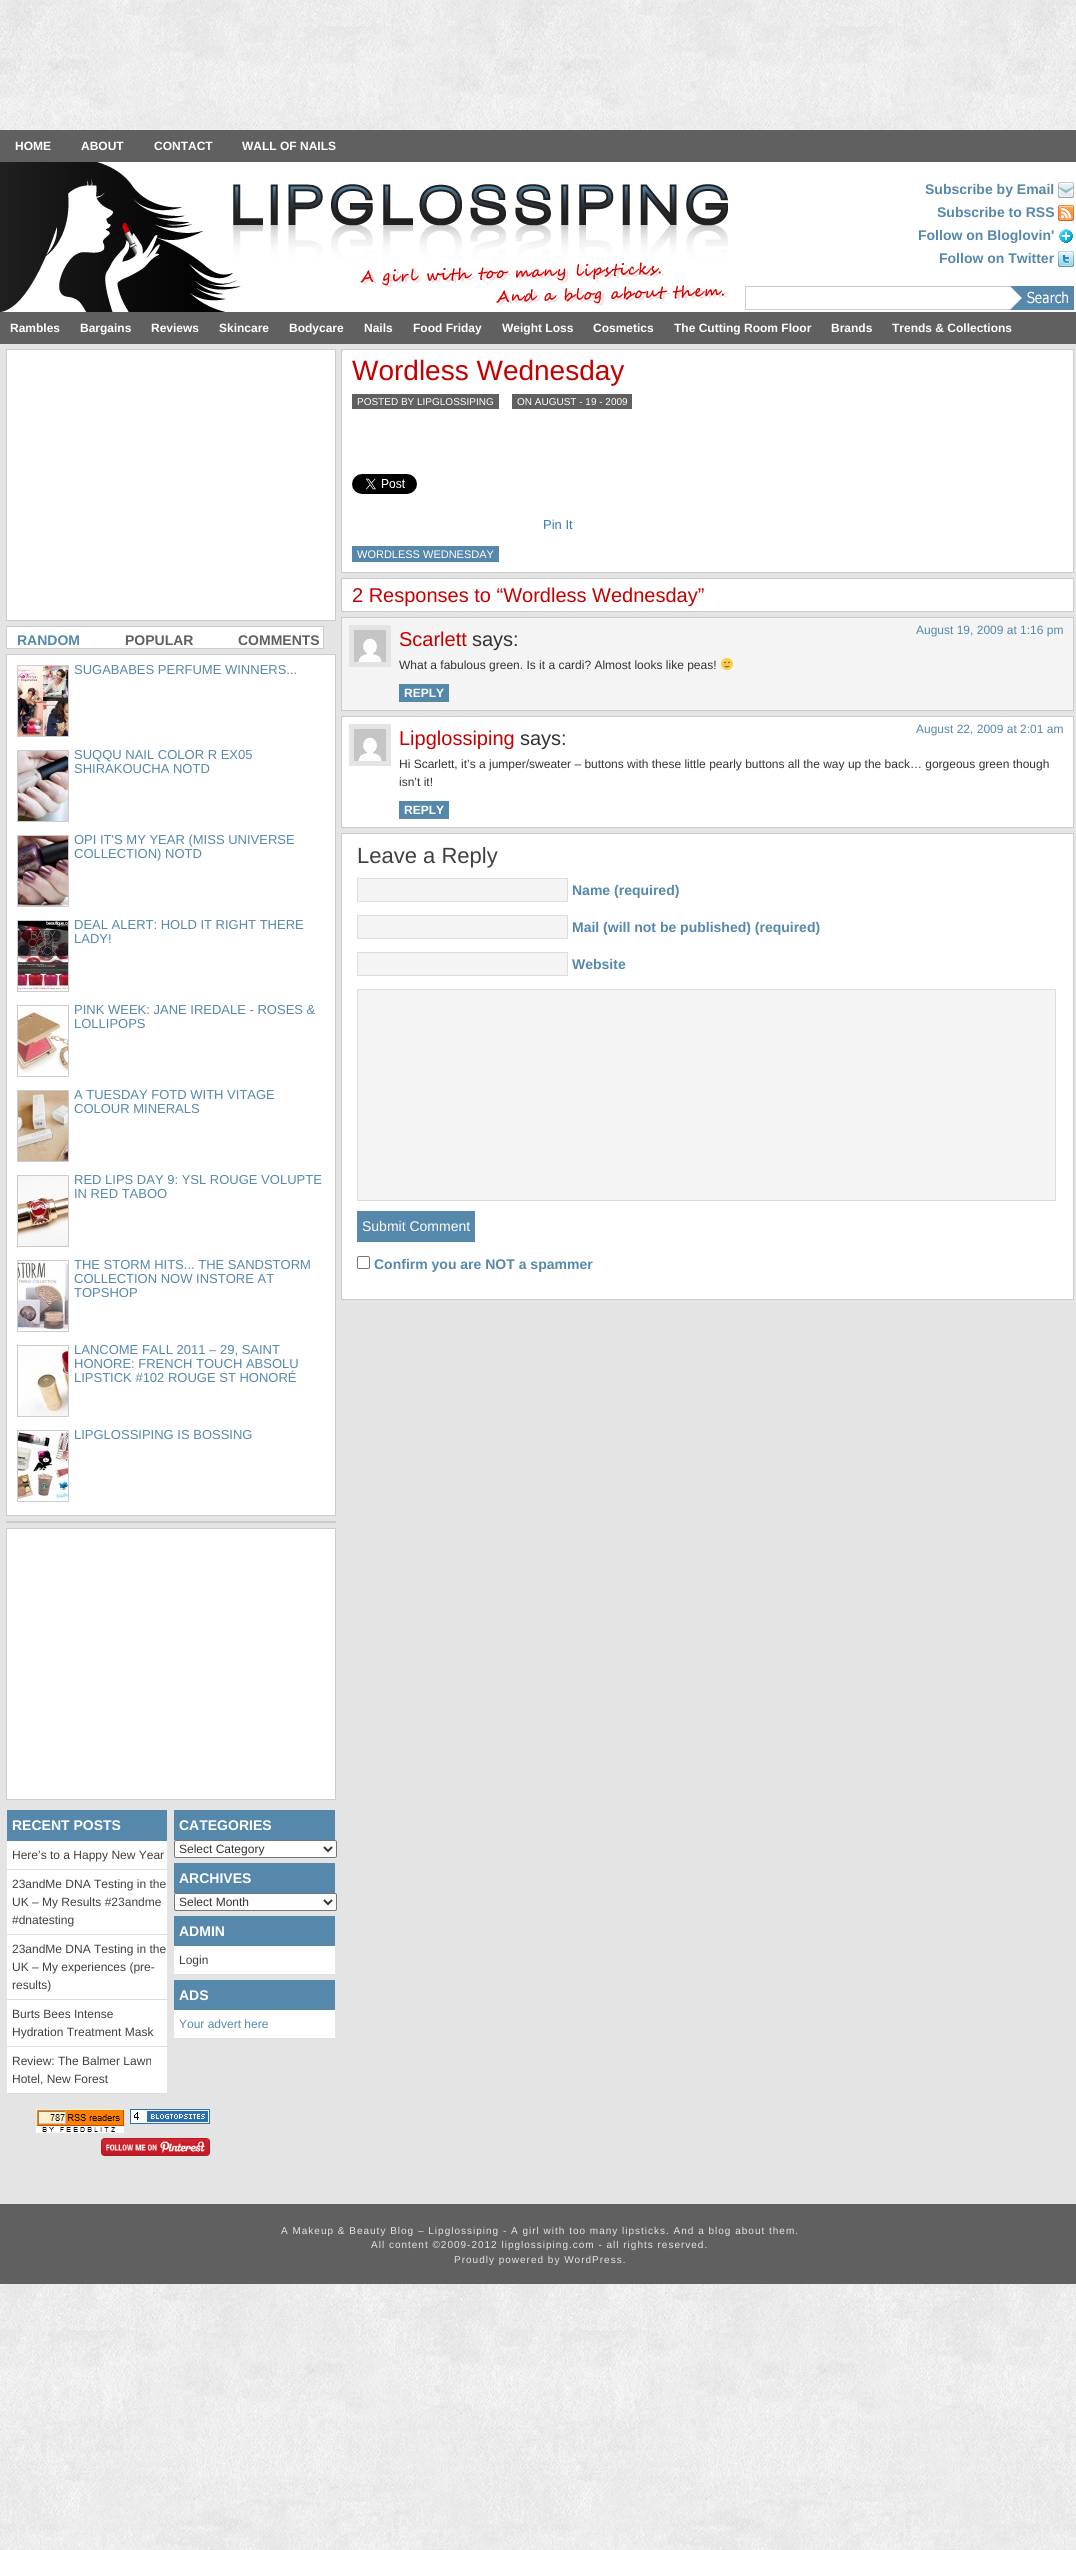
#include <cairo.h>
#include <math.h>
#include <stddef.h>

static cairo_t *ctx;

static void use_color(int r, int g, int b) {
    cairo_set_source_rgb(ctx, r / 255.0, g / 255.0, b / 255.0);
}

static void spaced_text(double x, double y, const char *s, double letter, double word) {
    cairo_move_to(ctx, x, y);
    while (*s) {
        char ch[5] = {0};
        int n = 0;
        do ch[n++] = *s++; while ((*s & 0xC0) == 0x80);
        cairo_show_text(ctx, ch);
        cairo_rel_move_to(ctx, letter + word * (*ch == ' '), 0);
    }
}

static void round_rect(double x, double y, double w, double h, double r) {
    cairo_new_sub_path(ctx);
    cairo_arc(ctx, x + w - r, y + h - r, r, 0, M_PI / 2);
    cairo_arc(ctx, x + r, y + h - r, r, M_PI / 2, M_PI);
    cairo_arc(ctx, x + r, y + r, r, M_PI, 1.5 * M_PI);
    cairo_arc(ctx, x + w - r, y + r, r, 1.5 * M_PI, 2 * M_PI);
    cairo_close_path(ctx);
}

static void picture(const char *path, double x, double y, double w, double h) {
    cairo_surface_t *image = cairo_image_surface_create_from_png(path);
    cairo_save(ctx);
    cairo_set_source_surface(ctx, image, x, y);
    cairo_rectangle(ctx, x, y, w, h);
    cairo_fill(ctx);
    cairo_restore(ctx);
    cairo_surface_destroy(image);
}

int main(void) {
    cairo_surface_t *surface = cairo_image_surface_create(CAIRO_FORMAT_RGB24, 1076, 2550);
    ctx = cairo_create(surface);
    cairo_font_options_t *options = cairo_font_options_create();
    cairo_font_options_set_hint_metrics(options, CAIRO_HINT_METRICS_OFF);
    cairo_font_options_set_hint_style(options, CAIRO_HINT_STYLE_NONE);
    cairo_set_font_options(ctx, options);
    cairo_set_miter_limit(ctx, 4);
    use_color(255, 255, 255);
    cairo_paint(ctx);
    picture("img1.png", 0, 0, 1076, 2550);
    use_color(96, 96, 96);
    cairo_rectangle(ctx, 0, 130, 1076, 214);
    cairo_fill(ctx);
    cairo_select_font_face(ctx, "Liberation Sans", CAIRO_FONT_SLANT_NORMAL, CAIRO_FONT_WEIGHT_BOLD);
    cairo_set_font_size(ctx, 12);
    use_color(255, 255, 255);
    cairo_move_to(ctx, 15, 150);
    cairo_show_text(ctx, "HOME");
    cairo_move_to(ctx, 81, 150);
    cairo_show_text(ctx, "ABOUT");
    cairo_move_to(ctx, 154, 150);
    cairo_show_text(ctx, "CONTACT");
    cairo_move_to(ctx, 242, 150);
    cairo_show_text(ctx, "WALL OF NAILS");
    cairo_rectangle(ctx, 728, 162, 348, 150);
    cairo_fill(ctx);
    picture("img2.png", 0, 162, 728, 150);
    cairo_set_font_size(ctx, 14);
    use_color(85, 136, 170);
    cairo_move_to(ctx, 925, 194);
    cairo_show_text(ctx, "Subscribe by Email");
    picture("img3.png", 1058, 182, 16, 16);
    cairo_move_to(ctx, 937, 217);
    cairo_show_text(ctx, "Subscribe to RSS");
    picture("img4.png", 1058, 205, 16, 16);
    cairo_move_to(ctx, 918, 240);
    cairo_show_text(ctx, "Follow on Bloglovin'");
    picture("img5.png", 1059, 229, 14, 14);
    cairo_move_to(ctx, 939, 263);
    cairo_show_text(ctx, "Follow on Twitter");
    picture("img6.png", 1058, 251, 16, 16);
    use_color(204, 204, 204);
    cairo_rectangle(ctx, 745, 286, 265, 1);
    cairo_fill(ctx);
    cairo_rectangle(ctx, 745, 309, 265, 1);
    cairo_fill(ctx);
    cairo_rectangle(ctx, 745, 286, 1, 24);
    cairo_fill(ctx);
    picture("img7.png", 1010, 286, 64, 24);
    cairo_set_font_size(ctx, 12);
    use_color(255, 255, 255);
    cairo_move_to(ctx, 10, 332);
    cairo_show_text(ctx, "Rambles");
    cairo_move_to(ctx, 80, 332);
    cairo_show_text(ctx, "Bargains");
    cairo_move_to(ctx, 151, 332);
    cairo_show_text(ctx, "Reviews");
    cairo_move_to(ctx, 219, 332);
    cairo_show_text(ctx, "Skincare");
    cairo_move_to(ctx, 289, 332);
    cairo_show_text(ctx, "Bodycare");
    cairo_move_to(ctx, 364, 332);
    cairo_show_text(ctx, "Nails");
    cairo_move_to(ctx, 413, 332);
    cairo_show_text(ctx, "Food Friday");
    cairo_move_to(ctx, 502, 332);
    cairo_show_text(ctx, "Weight Loss");
    cairo_move_to(ctx, 593, 332);
    cairo_show_text(ctx, "Cosmetics");
    cairo_move_to(ctx, 674, 332);
    cairo_show_text(ctx, "The Cutting Room Floor");
    cairo_move_to(ctx, 831, 332);
    cairo_show_text(ctx, "Brands");
    cairo_move_to(ctx, 892, 332);
    cairo_show_text(ctx, "Trends & Collections");
    use_color(228, 228, 228);
    cairo_rectangle(ctx, 0, 344, 1076, 1860);
    cairo_fill(ctx);
    use_color(255, 255, 255);
    cairo_rectangle(ctx, 6.5, 349.5, 329, 271);
    cairo_fill_preserve(ctx);
    use_color(204, 204, 204);
    cairo_set_line_width(ctx, 1);
    cairo_stroke(ctx);
    use_color(255, 255, 255);
    cairo_rectangle(ctx, 6.5, 626.5, 317, 22);
    cairo_fill_preserve(ctx);
    use_color(204, 204, 204);
    cairo_stroke(ctx);
    cairo_set_font_size(ctx, 14);
    use_color(85, 136, 170);
    cairo_move_to(ctx, 17, 645);
    cairo_show_text(ctx, "RANDOM");
    use_color(96, 96, 96);
    cairo_move_to(ctx, 125, 645);
    cairo_show_text(ctx, "POPULAR");
    cairo_move_to(ctx, 238, 645);
    cairo_show_text(ctx, "COMMENTS");
    use_color(255, 255, 255);
    cairo_rectangle(ctx, 6.5, 654.5, 329, 861);
    cairo_fill_preserve(ctx);
    use_color(204, 204, 204);
    cairo_stroke(ctx);
    cairo_rectangle(ctx, 17, 665, 52, 72);
    cairo_fill(ctx);
    picture("img8.png", 18, 666, 50, 70);
    cairo_select_font_face(ctx, "Liberation Sans", CAIRO_FONT_SLANT_NORMAL, CAIRO_FONT_WEIGHT_NORMAL);
    cairo_set_font_size(ctx, 13);
    use_color(85, 136, 170);
    cairo_move_to(ctx, 74, 674);
    cairo_show_text(ctx, "SUGABABES PERFUME WINNERS...");
    use_color(204, 204, 204);
    cairo_rectangle(ctx, 17, 750, 52, 72);
    cairo_fill(ctx);
    picture("img9.png", 18, 751, 50, 70);
    use_color(85, 136, 170);
    cairo_move_to(ctx, 74, 759);
    cairo_show_text(ctx, "SUQQU NAIL COLOR R EX05");
    cairo_move_to(ctx, 74, 773);
    cairo_show_text(ctx, "SHIRAKOUCHA NOTD");
    use_color(204, 204, 204);
    cairo_rectangle(ctx, 17, 835, 52, 72);
    cairo_fill(ctx);
    picture("img10.png", 18, 836, 50, 70);
    use_color(85, 136, 170);
    cairo_move_to(ctx, 74, 844);
    cairo_show_text(ctx, "OPI IT'S MY YEAR (MISS UNIVERSE");
    cairo_move_to(ctx, 74, 858);
    cairo_show_text(ctx, "COLLECTION) NOTD");
    use_color(204, 204, 204);
    cairo_rectangle(ctx, 17, 920, 52, 72);
    cairo_fill(ctx);
    picture("img11.png", 18, 921, 50, 70);
    use_color(85, 136, 170);
    cairo_move_to(ctx, 74, 929);
    cairo_show_text(ctx, "DEAL ALERT: HOLD IT RIGHT THERE");
    cairo_move_to(ctx, 74, 943);
    cairo_show_text(ctx, "LADY!");
    use_color(204, 204, 204);
    cairo_rectangle(ctx, 17, 1005, 52, 72);
    cairo_fill(ctx);
    picture("img12.png", 18, 1006, 50, 70);
    use_color(85, 136, 170);
    cairo_move_to(ctx, 74, 1014);
    cairo_show_text(ctx, "PINK WEEK: JANE IREDALE - ROSES &");
    cairo_move_to(ctx, 74, 1028);
    cairo_show_text(ctx, "LOLLIPOPS");
    use_color(204, 204, 204);
    cairo_rectangle(ctx, 17, 1090, 52, 72);
    cairo_fill(ctx);
    picture("img13.png", 18, 1091, 50, 70);
    use_color(85, 136, 170);
    cairo_move_to(ctx, 74, 1099);
    cairo_show_text(ctx, "A TUESDAY FOTD WITH VITAGE");
    cairo_move_to(ctx, 74, 1113);
    cairo_show_text(ctx, "COLOUR MINERALS");
    use_color(204, 204, 204);
    cairo_rectangle(ctx, 17, 1175, 52, 72);
    cairo_fill(ctx);
    picture("img14.png", 18, 1176, 50, 70);
    use_color(85, 136, 170);
    cairo_move_to(ctx, 74, 1184);
    cairo_show_text(ctx, "RED LIPS DAY 9: YSL ROUGE VOLUPTE");
    cairo_move_to(ctx, 74, 1198);
    cairo_show_text(ctx, "IN RED TABOO");
    use_color(204, 204, 204);
    cairo_rectangle(ctx, 17, 1260, 52, 72);
    cairo_fill(ctx);
    picture("img15.png", 18, 1261, 50, 70);
    use_color(85, 136, 170);
    cairo_move_to(ctx, 74, 1269);
    cairo_show_text(ctx, "THE STORM HITS... THE SANDSTORM");
    cairo_move_to(ctx, 74, 1283);
    cairo_show_text(ctx, "COLLECTION NOW INSTORE AT");
    cairo_move_to(ctx, 74, 1297);
    cairo_show_text(ctx, "TOPSHOP");
    use_color(204, 204, 204);
    cairo_rectangle(ctx, 17, 1345, 52, 72);
    cairo_fill(ctx);
    picture("img16.png", 18, 1346, 50, 70);
    use_color(85, 136, 170);
    cairo_move_to(ctx, 74, 1354);
    cairo_show_text(ctx, "LANCOME FALL 2011 – 29, SAINT");
    cairo_move_to(ctx, 74, 1368);
    cairo_show_text(ctx, "HONORE: FRENCH TOUCH ABSOLU");
    cairo_move_to(ctx, 74, 1382);
    cairo_show_text(ctx, "LIPSTICK #102 ROUGE ST HONORÉ");
    use_color(204, 204, 204);
    cairo_rectangle(ctx, 17, 1430, 52, 72);
    cairo_fill(ctx);
    picture("img17.png", 18, 1431, 50, 70);
    use_color(85, 136, 170);
    cairo_move_to(ctx, 74, 1439);
    cairo_show_text(ctx, "LIPGLOSSIPING IS BOSSING");
    use_color(204, 204, 204);
    cairo_rectangle(ctx, 6, 1521, 330, 2);
    cairo_fill(ctx);
    use_color(255, 255, 255);
    cairo_rectangle(ctx, 6.5, 1528.5, 329, 271);
    cairo_fill_preserve(ctx);
    use_color(204, 204, 204);
    cairo_stroke(ctx);
    use_color(85, 136, 170);
    cairo_rectangle(ctx, 7, 1810, 160, 31);
    cairo_fill(ctx);
    cairo_select_font_face(ctx, "Liberation Sans", CAIRO_FONT_SLANT_NORMAL, CAIRO_FONT_WEIGHT_BOLD);
    cairo_set_font_size(ctx, 14);
    use_color(255, 255, 255);
    cairo_move_to(ctx, 12, 1830);
    cairo_show_text(ctx, "RECENT POSTS");
    cairo_rectangle(ctx, 7, 1841, 160, 28);
    cairo_fill(ctx);
    use_color(223, 223, 223);
    cairo_rectangle(ctx, 7, 1869, 160, 1);
    cairo_fill(ctx);
    cairo_select_font_face(ctx, "Liberation Sans", CAIRO_FONT_SLANT_NORMAL, CAIRO_FONT_WEIGHT_NORMAL);
    cairo_set_font_size(ctx, 12);
    use_color(64, 64, 64);
    cairo_move_to(ctx, 12, 1859);
    cairo_show_text(ctx, "Here’s to a Happy New Year");
    use_color(255, 255, 255);
    cairo_rectangle(ctx, 7, 1870, 160, 64);
    cairo_fill(ctx);
    use_color(223, 223, 223);
    cairo_rectangle(ctx, 7, 1934, 160, 1);
    cairo_fill(ctx);
    use_color(64, 64, 64);
    cairo_move_to(ctx, 12, 1888);
    cairo_show_text(ctx, "23andMe DNA Testing in the");
    cairo_move_to(ctx, 12, 1906);
    cairo_show_text(ctx, "UK – My Results #23andme");
    cairo_move_to(ctx, 12, 1924);
    cairo_show_text(ctx, "#dnatesting");
    use_color(255, 255, 255);
    cairo_rectangle(ctx, 7, 1935, 160, 64);
    cairo_fill(ctx);
    use_color(223, 223, 223);
    cairo_rectangle(ctx, 7, 1999, 160, 1);
    cairo_fill(ctx);
    use_color(64, 64, 64);
    cairo_move_to(ctx, 12, 1953);
    cairo_show_text(ctx, "23andMe DNA Testing in the");
    cairo_move_to(ctx, 12, 1971);
    cairo_show_text(ctx, "UK – My experiences (pre-");
    cairo_move_to(ctx, 12, 1989);
    cairo_show_text(ctx, "results)");
    use_color(255, 255, 255);
    cairo_rectangle(ctx, 7, 2000, 160, 46);
    cairo_fill(ctx);
    use_color(223, 223, 223);
    cairo_rectangle(ctx, 7, 2046, 160, 1);
    cairo_fill(ctx);
    use_color(64, 64, 64);
    cairo_move_to(ctx, 12, 2018);
    cairo_show_text(ctx, "Burts Bees Intense");
    cairo_move_to(ctx, 12, 2036);
    cairo_show_text(ctx, "Hydration Treatment Mask");
    use_color(255, 255, 255);
    cairo_rectangle(ctx, 7, 2047, 160, 46);
    cairo_fill(ctx);
    use_color(223, 223, 223);
    cairo_rectangle(ctx, 7, 2093, 160, 1);
    cairo_fill(ctx);
    use_color(64, 64, 64);
    cairo_move_to(ctx, 12, 2065);
    cairo_show_text(ctx, "Review: The Balmer Lawn");
    cairo_move_to(ctx, 12, 2083);
    cairo_show_text(ctx, "Hotel, New Forest");
    use_color(85, 136, 170);
    cairo_rectangle(ctx, 174, 1810, 161, 30);
    cairo_fill(ctx);
    cairo_select_font_face(ctx, "Liberation Sans", CAIRO_FONT_SLANT_NORMAL, CAIRO_FONT_WEIGHT_BOLD);
    cairo_set_font_size(ctx, 14);
    use_color(255, 255, 255);
    cairo_move_to(ctx, 179, 1830);
    cairo_show_text(ctx, "CATEGORIES");
    round_rect(174.5, 1840.5, 162, 17, 1.5);
    cairo_fill_preserve(ctx);
    use_color(118, 118, 118);
    cairo_stroke(ctx);
    cairo_new_path(ctx);
    cairo_move_to(ctx, 324, 1847);
    cairo_line_to(ctx, 328, 1851);
    cairo_line_to(ctx, 332, 1847);
    use_color(51, 51, 51);
    cairo_set_line_width(ctx, 2);
    cairo_stroke(ctx);
    cairo_select_font_face(ctx, "Liberation Sans", CAIRO_FONT_SLANT_NORMAL, CAIRO_FONT_WEIGHT_NORMAL);
    cairo_set_font_size(ctx, 12);
    cairo_move_to(ctx, 179, 1853);
    cairo_show_text(ctx, "Select Category");
    use_color(85, 136, 170);
    cairo_rectangle(ctx, 174, 1863, 161, 30);
    cairo_fill(ctx);
    cairo_select_font_face(ctx, "Liberation Sans", CAIRO_FONT_SLANT_NORMAL, CAIRO_FONT_WEIGHT_BOLD);
    cairo_set_font_size(ctx, 14);
    use_color(255, 255, 255);
    cairo_move_to(ctx, 179, 1883);
    cairo_show_text(ctx, "ARCHIVES");
    round_rect(174.5, 1893.5, 162, 17, 1.5);
    cairo_fill_preserve(ctx);
    use_color(118, 118, 118);
    cairo_set_line_width(ctx, 1);
    cairo_stroke(ctx);
    cairo_new_path(ctx);
    cairo_move_to(ctx, 324, 1900);
    cairo_line_to(ctx, 328, 1904);
    cairo_line_to(ctx, 332, 1900);
    use_color(51, 51, 51);
    cairo_set_line_width(ctx, 2);
    cairo_stroke(ctx);
    cairo_select_font_face(ctx, "Liberation Sans", CAIRO_FONT_SLANT_NORMAL, CAIRO_FONT_WEIGHT_NORMAL);
    cairo_set_font_size(ctx, 12);
    cairo_move_to(ctx, 179, 1906);
    cairo_show_text(ctx, "Select Month");
    use_color(85, 136, 170);
    cairo_rectangle(ctx, 174, 1916, 161, 30);
    cairo_fill(ctx);
    cairo_select_font_face(ctx, "Liberation Sans", CAIRO_FONT_SLANT_NORMAL, CAIRO_FONT_WEIGHT_BOLD);
    cairo_set_font_size(ctx, 14);
    use_color(255, 255, 255);
    cairo_move_to(ctx, 179, 1936);
    cairo_show_text(ctx, "ADMIN");
    cairo_rectangle(ctx, 174, 1946, 161, 28);
    cairo_fill(ctx);
    use_color(223, 223, 223);
    cairo_rectangle(ctx, 174, 1974, 161, 1);
    cairo_fill(ctx);
    cairo_select_font_face(ctx, "Liberation Sans", CAIRO_FONT_SLANT_NORMAL, CAIRO_FONT_WEIGHT_NORMAL);
    cairo_set_font_size(ctx, 12);
    use_color(64, 64, 64);
    cairo_move_to(ctx, 179, 1964);
    cairo_show_text(ctx, "Login");
    use_color(85, 136, 170);
    cairo_rectangle(ctx, 174, 1980, 161, 30);
    cairo_fill(ctx);
    cairo_select_font_face(ctx, "Liberation Sans", CAIRO_FONT_SLANT_NORMAL, CAIRO_FONT_WEIGHT_BOLD);
    cairo_set_font_size(ctx, 14);
    use_color(255, 255, 255);
    cairo_move_to(ctx, 179, 2000);
    cairo_show_text(ctx, "ADS");
    cairo_rectangle(ctx, 174, 2010, 161, 28);
    cairo_fill(ctx);
    use_color(223, 223, 223);
    cairo_rectangle(ctx, 174, 2038, 161, 1);
    cairo_fill(ctx);
    cairo_select_font_face(ctx, "Liberation Sans", CAIRO_FONT_SLANT_NORMAL, CAIRO_FONT_WEIGHT_NORMAL);
    cairo_set_font_size(ctx, 12);
    use_color(85, 136, 170);
    cairo_move_to(ctx, 179, 2028);
    cairo_show_text(ctx, "Your advert here");
    picture("img18.png", 36, 2109, 88, 24);
    picture("img19.png", 130, 2109, 80, 15);
    picture("img20.png", 101, 2138, 109, 18);
    use_color(255, 255, 255);
    cairo_rectangle(ctx, 341.5, 349.5, 732, 223);
    cairo_fill_preserve(ctx);
    use_color(204, 204, 204);
    cairo_set_line_width(ctx, 1);
    cairo_stroke(ctx);
    cairo_set_font_size(ctx, 28);
    use_color(197, 0, 0);
    cairo_move_to(ctx, 352, 380);
    cairo_show_text(ctx, "Wordless Wednesday");
    use_color(96, 96, 96);
    cairo_rectangle(ctx, 352, 394, 147, 15);
    cairo_fill(ctx);
    cairo_set_font_size(ctx, 10);
    use_color(255, 255, 255);
    cairo_move_to(ctx, 357, 405);
    cairo_show_text(ctx, "POSTED BY LIPGLOSSIPING");
    use_color(96, 96, 96);
    cairo_rectangle(ctx, 512, 394, 120, 15);
    cairo_fill(ctx);
    use_color(255, 255, 255);
    cairo_move_to(ctx, 517, 405);
    cairo_show_text(ctx, "ON AUGUST - 19 - 2009");
    picture("img21.png", 352, 474, 65, 20);
    cairo_set_font_size(ctx, 13);
    use_color(51, 122, 183);
    cairo_move_to(ctx, 543, 529);
    cairo_show_text(ctx, "Pin It");
    use_color(85, 136, 170);
    cairo_rectangle(ctx, 352, 546, 147, 16);
    cairo_fill(ctx);
    cairo_set_font_size(ctx, 11);
    use_color(255, 255, 255);
    cairo_move_to(ctx, 357, 558);
    cairo_show_text(ctx, "WORDLESS WEDNESDAY");
    cairo_rectangle(ctx, 341.5, 578.5, 732, 33);
    cairo_fill_preserve(ctx);
    use_color(204, 204, 204);
    cairo_stroke(ctx);
    cairo_set_font_size(ctx, 20);
    use_color(197, 0, 0);
    cairo_move_to(ctx, 352, 602);
    cairo_show_text(ctx, "2 Responses to “Wordless Wednesday”");
    use_color(244, 244, 244);
    cairo_rectangle(ctx, 341.5, 617.5, 732, 93);
    cairo_fill_preserve(ctx);
    use_color(204, 204, 204);
    cairo_stroke(ctx);
    use_color(228, 228, 228);
    cairo_rectangle(ctx, 349, 625, 42, 42);
    cairo_fill(ctx);
    picture("img22.png", 354, 630, 32, 32);
    use_color(197, 0, 0);
    cairo_move_to(ctx, 399, 646);
    cairo_show_text(ctx, "Scarlett");
    use_color(51, 51, 51);
    cairo_move_to(ctx, 472, 646);
    cairo_show_text(ctx, "says:");
    cairo_set_font_size(ctx, 12);
    use_color(85, 136, 170);
    cairo_move_to(ctx, 916, 634);
    cairo_show_text(ctx, "August 19, 2009 at 1:16 pm");
    use_color(51, 51, 51);
    cairo_move_to(ctx, 399, 669);
    cairo_show_text(ctx, "What a fabulous green. Is it a cardi? Almost looks like peas!");
    picture("img23.png", 721, 658, 12, 12);
    use_color(85, 136, 170);
    cairo_rectangle(ctx, 399, 684, 50, 18);
    cairo_fill(ctx);
    cairo_select_font_face(ctx, "Liberation Sans", CAIRO_FONT_SLANT_NORMAL, CAIRO_FONT_WEIGHT_BOLD);
    use_color(255, 255, 255);
    cairo_move_to(ctx, 404, 697);
    cairo_show_text(ctx, "REPLY");
    cairo_rectangle(ctx, 341.5, 716.5, 732, 111);
    cairo_fill_preserve(ctx);
    use_color(204, 204, 204);
    cairo_stroke(ctx);
    use_color(228, 228, 228);
    cairo_rectangle(ctx, 349, 724, 42, 42);
    cairo_fill(ctx);
    picture("img22.png", 354, 729, 32, 32);
    cairo_select_font_face(ctx, "Liberation Sans", CAIRO_FONT_SLANT_NORMAL, CAIRO_FONT_WEIGHT_NORMAL);
    cairo_set_font_size(ctx, 20);
    use_color(197, 0, 0);
    cairo_move_to(ctx, 399, 745);
    cairo_show_text(ctx, "Lipglossiping");
    use_color(51, 51, 51);
    cairo_move_to(ctx, 520, 745);
    cairo_show_text(ctx, "says:");
    cairo_set_font_size(ctx, 12);
    use_color(85, 136, 170);
    cairo_move_to(ctx, 916, 733);
    cairo_show_text(ctx, "August 22, 2009 at 2:01 am");
    use_color(51, 51, 51);
    cairo_move_to(ctx, 399, 768);
    cairo_show_text(ctx, "Hi Scarlett, it’s a jumper/sweater – buttons with these little pearly buttons all the way up the back… gorgeous green though");
    cairo_move_to(ctx, 399, 786);
    cairo_show_text(ctx, "isn’t it!");
    use_color(85, 136, 170);
    cairo_rectangle(ctx, 399, 801, 50, 18);
    cairo_fill(ctx);
    cairo_select_font_face(ctx, "Liberation Sans", CAIRO_FONT_SLANT_NORMAL, CAIRO_FONT_WEIGHT_BOLD);
    use_color(255, 255, 255);
    cairo_move_to(ctx, 404, 814);
    cairo_show_text(ctx, "REPLY");
    cairo_rectangle(ctx, 341.5, 833.5, 732, 466);
    cairo_fill_preserve(ctx);
    use_color(204, 204, 204);
    cairo_stroke(ctx);
    cairo_select_font_face(ctx, "Liberation Sans", CAIRO_FONT_SLANT_NORMAL, CAIRO_FONT_WEIGHT_NORMAL);
    cairo_set_font_size(ctx, 22);
    use_color(64, 64, 64);
    cairo_move_to(ctx, 357, 863);
    cairo_show_text(ctx, "Leave a Reply");
    use_color(244, 244, 244);
    cairo_rectangle(ctx, 357.5, 878.5, 210, 23);
    cairo_fill_preserve(ctx);
    use_color(222, 220, 221);
    cairo_stroke(ctx);
    cairo_select_font_face(ctx, "Liberation Sans", CAIRO_FONT_SLANT_NORMAL, CAIRO_FONT_WEIGHT_BOLD);
    cairo_set_font_size(ctx, 14);
    use_color(85, 136, 170);
    cairo_move_to(ctx, 572, 895);
    cairo_show_text(ctx, "Name (required)");
    use_color(244, 244, 244);
    cairo_rectangle(ctx, 357.5, 915.5, 210, 23);
    cairo_fill_preserve(ctx);
    use_color(222, 220, 221);
    cairo_stroke(ctx);
    use_color(85, 136, 170);
    cairo_move_to(ctx, 572, 932);
    cairo_show_text(ctx, "Mail (will not be published) (required)");
    use_color(244, 244, 244);
    cairo_rectangle(ctx, 357.5, 952.5, 210, 23);
    cairo_fill_preserve(ctx);
    use_color(222, 220, 221);
    cairo_stroke(ctx);
    use_color(85, 136, 170);
    cairo_move_to(ctx, 572, 969);
    cairo_show_text(ctx, "Website");
    use_color(244, 244, 244);
    cairo_rectangle(ctx, 357.5, 989.5, 698, 211);
    cairo_fill_preserve(ctx);
    use_color(222, 220, 221);
    cairo_stroke(ctx);
    use_color(85, 136, 170);
    cairo_rectangle(ctx, 357, 1211, 118, 31);
    cairo_fill(ctx);
    cairo_select_font_face(ctx, "Liberation Sans", CAIRO_FONT_SLANT_NORMAL, CAIRO_FONT_WEIGHT_NORMAL);
    use_color(255, 255, 255);
    cairo_move_to(ctx, 362, 1231);
    cairo_show_text(ctx, "Submit Comment");
    round_rect(357.5, 1256.5, 12, 12, 1.5);
    use_color(118, 118, 118);
    cairo_stroke(ctx);
    cairo_select_font_face(ctx, "Liberation Sans", CAIRO_FONT_SLANT_NORMAL, CAIRO_FONT_WEIGHT_BOLD);
    use_color(85, 136, 170);
    cairo_move_to(ctx, 374, 1269);
    cairo_show_text(ctx, "Confirm you are NOT a spammer");
    use_color(96, 96, 96);
    cairo_rectangle(ctx, 0, 2204, 1076, 80);
    cairo_fill(ctx);
    cairo_select_font_face(ctx, "Liberation Sans", CAIRO_FONT_SLANT_NORMAL, CAIRO_FONT_WEIGHT_NORMAL);
    cairo_set_font_size(ctx, 10);
    use_color(228, 228, 228);
    spaced_text(281, 2234, "A Makeup & Beauty Blog – Lipglossiping - A girl with too many lipsticks. And a blog about them.", 1, 0);
    spaced_text(371, 2248, "All content ©2009-2012 lipglossiping.com - all rights reserved.", 1, 0);
    spaced_text(454, 2263, "Proudly powered by WordPress.", 1, 0);
    cairo_surface_write_to_png(surface, "result.png");
    cairo_font_options_destroy(options);
    cairo_destroy(ctx);
    cairo_surface_destroy(surface);
    return 0;
}
